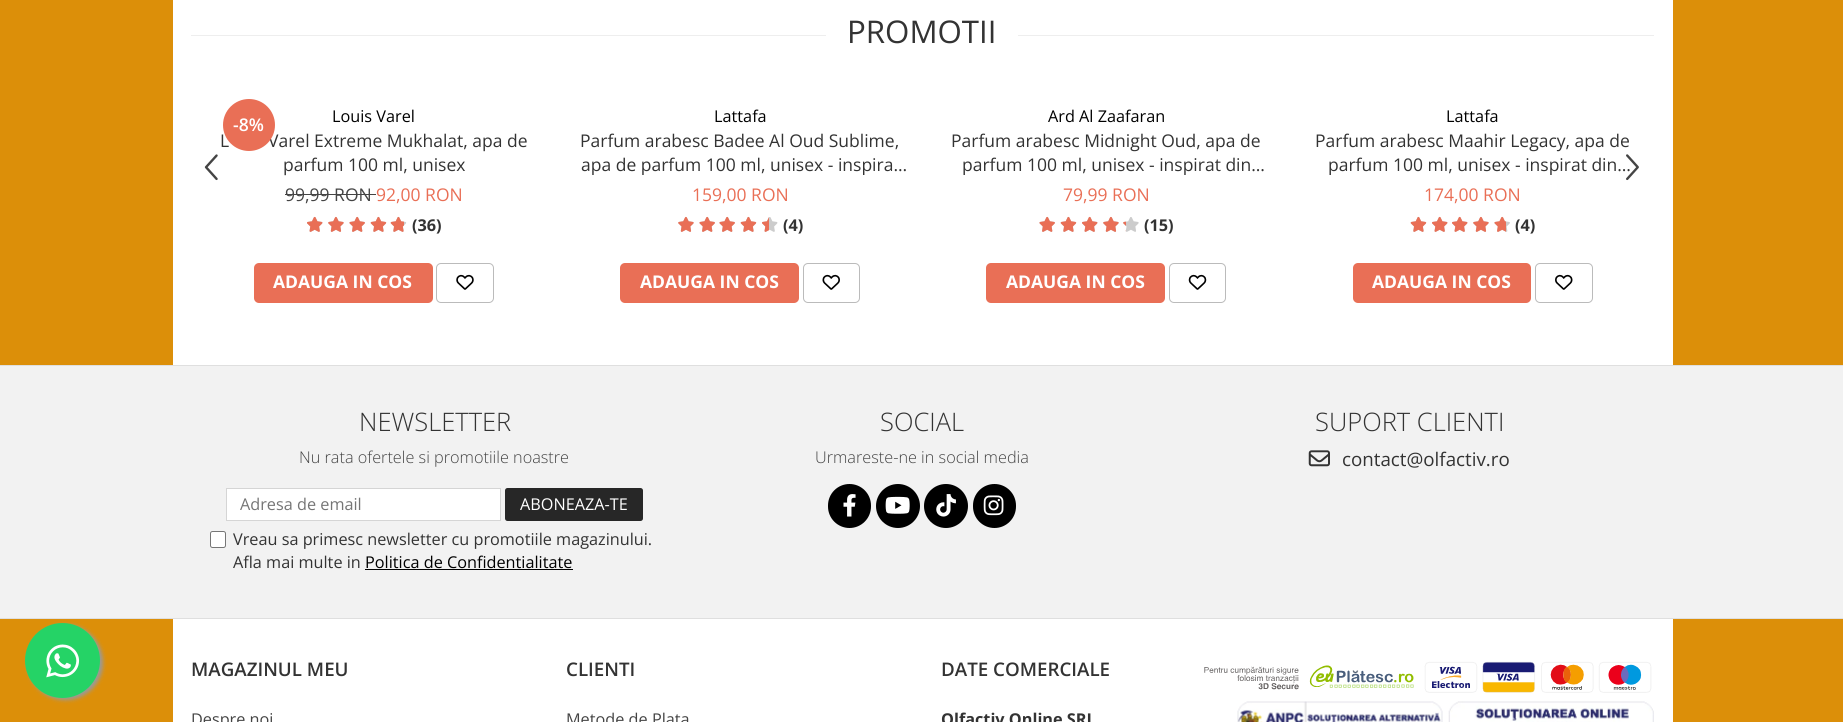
#include <cairo.h>
#include <math.h>
#include <stddef.h>

static cairo_t *ctx;

static void use_color(int r, int g, int b) {
    cairo_set_source_rgb(ctx, r / 255.0, g / 255.0, b / 255.0);
}

static void round_rect(double x, double y, double w, double h, double r) {
    cairo_new_sub_path(ctx);
    cairo_arc(ctx, x + w - r, y + h - r, r, 0, M_PI / 2);
    cairo_arc(ctx, x + r, y + h - r, r, M_PI / 2, M_PI);
    cairo_arc(ctx, x + r, y + r, r, M_PI, 1.5 * M_PI);
    cairo_arc(ctx, x + w - r, y + r, r, 1.5 * M_PI, 2 * M_PI);
    cairo_close_path(ctx);
}

static void shadow(double x, double y, double w, double h, double r, double blur, double alpha) {
    cairo_push_group_with_content(ctx, CAIRO_CONTENT_ALPHA);
    cairo_set_operator(ctx, CAIRO_OPERATOR_SOURCE);
    for (int i = 15; i >= -15 && fmin(w, h) + blur * i / 3 > 0; i -= 2) {
        double e = blur * i / 6;
        cairo_set_source_rgba(ctx, 0, 0, 0, alpha * erfc((i - 1) / 8.5) / 2);
        round_rect(x - e, y - e, w + 2 * e, h + 2 * e, fmax(0, fmin(r + e + blur * .6, fmin(w, h) / 2 + e)));
        cairo_fill(ctx);
    }
    cairo_pattern_t *soft = cairo_pop_group(ctx);
    cairo_mask(ctx, soft);
    cairo_pattern_destroy(soft);
}

static void picture(const char *path, double x, double y, double w, double h) {
    cairo_surface_t *image = cairo_image_surface_create_from_png(path);
    cairo_save(ctx);
    cairo_set_source_surface(ctx, image, x, y);
    cairo_rectangle(ctx, x, y, w, h);
    cairo_fill(ctx);
    cairo_restore(ctx);
    cairo_surface_destroy(image);
}

int main(void) {
    cairo_surface_t *surface = cairo_image_surface_create(CAIRO_FORMAT_RGB24, 1843, 722);
    ctx = cairo_create(surface);
    cairo_font_options_t *options = cairo_font_options_create();
    cairo_font_options_set_hint_metrics(options, CAIRO_HINT_METRICS_OFF);
    cairo_font_options_set_hint_style(options, CAIRO_HINT_STYLE_NONE);
    cairo_set_font_options(ctx, options);
    cairo_set_miter_limit(ctx, 4);
    use_color(220, 143, 9);
    cairo_paint(ctx);
    use_color(223, 223, 223);
    cairo_rectangle(ctx, 0, 618, 1843, 1);
    cairo_fill(ctx);
    use_color(153, 153, 153);
    shadow(28, 625, 75, 75, 37.5, 2, 1);
    use_color(37, 211, 102);
    cairo_arc(ctx, 62.5, 660.5, 37.5, 0, 2 * M_PI);
    cairo_fill(ctx);
    picture("img1.png", 46, 644, 34, 34);
    use_color(255, 255, 255);
    cairo_rectangle(ctx, 173, 0, 1500, 365);
    cairo_fill(ctx);
    use_color(238, 238, 238);
    cairo_rectangle(ctx, 191, 35, 1463, 1);
    cairo_fill(ctx);
    use_color(255, 255, 255);
    cairo_rectangle(ctx, 826, 35, 192, 1);
    cairo_fill(ctx);
    cairo_select_font_face(ctx, "Open Sans", CAIRO_FONT_SLANT_NORMAL, CAIRO_FONT_WEIGHT_NORMAL);
    cairo_set_font_size(ctx, 31.25);
    use_color(51, 51, 51);
    cairo_move_to(ctx, 847, 43);
    cairo_show_text(ctx, "PROMOTII");
    cairo_set_font_size(ctx, 16.25);
    use_color(0, 0, 0);
    cairo_move_to(ctx, 332, 122);
    cairo_show_text(ctx, "Louis Varel");
    cairo_set_font_size(ctx, 17.5);
    use_color(51, 51, 51);
    cairo_move_to(ctx, 220, 147);
    cairo_show_text(ctx, "L");
    cairo_move_to(ctx, 268, 147);
    cairo_show_text(ctx, "Varel Extreme Mukhalat, apa de");
    cairo_move_to(ctx, 283, 171);
    cairo_show_text(ctx, "parfum 100 ml, unisex");
    use_color(68, 68, 68);
    cairo_move_to(ctx, 285, 201);
    cairo_show_text(ctx, "99,99 RON");
    cairo_rectangle(ctx, 285, 194, 91, 1);
    cairo_fill(ctx);
    use_color(233, 111, 86);
    cairo_move_to(ctx, 376, 201);
    cairo_show_text(ctx, "92,00 RON");
    picture("img7.png", 307, 217, 16, 15);
    picture("img2.png", 307, 216, 16, 16);
    picture("img8.png", 328, 217, 16, 15);
    picture("img3.png", 328, 216, 16, 16);
    picture("img9.png", 349, 217, 16, 15);
    picture("img4.png", 349, 216, 16, 16);
    picture("img10.png", 370, 217, 17, 15);
    picture("img5.png", 370, 216, 17, 16);
    picture("img10.png", 390, 217, 17, 15);
    picture("img6.png", 390, 216, 14, 16);
    cairo_select_font_face(ctx, "Open Sans", CAIRO_FONT_SLANT_NORMAL, CAIRO_FONT_WEIGHT_BOLD);
    cairo_set_font_size(ctx, 16.25);
    use_color(51, 51, 51);
    cairo_move_to(ctx, 412, 231);
    cairo_show_text(ctx, "(36)");
    use_color(233, 111, 86);
    cairo_new_path(ctx);
    cairo_arc(ctx, 249, 125, 26, 0, 2 * M_PI);
    cairo_fill(ctx);
    cairo_select_font_face(ctx, "Open Sans SemiBold", CAIRO_FONT_SLANT_NORMAL, CAIRO_FONT_WEIGHT_NORMAL);
    cairo_set_font_size(ctx, 17.5);
    use_color(255, 255, 255);
    cairo_move_to(ctx, 233, 131);
    cairo_show_text(ctx, "-8%");
    use_color(233, 111, 86);
    round_rect(254, 263, 179, 40, 5);
    cairo_fill(ctx);
    cairo_select_font_face(ctx, "Open Sans", CAIRO_FONT_SLANT_NORMAL, CAIRO_FONT_WEIGHT_BOLD);
    use_color(255, 255, 255);
    cairo_move_to(ctx, 273, 288);
    cairo_show_text(ctx, "ADAUGA IN COS");
    round_rect(436.5, 263.5, 57, 39, 4.5);
    use_color(187, 187, 187);
    cairo_set_line_width(ctx, 1);
    cairo_stroke(ctx);
    picture("img11.png", 456, 274, 18, 16);
    cairo_select_font_face(ctx, "Open Sans", CAIRO_FONT_SLANT_NORMAL, CAIRO_FONT_WEIGHT_NORMAL);
    cairo_set_font_size(ctx, 16.25);
    use_color(0, 0, 0);
    cairo_move_to(ctx, 714, 122);
    cairo_show_text(ctx, "Lattafa");
    cairo_set_font_size(ctx, 17.5);
    use_color(51, 51, 51);
    cairo_move_to(ctx, 580, 147);
    cairo_show_text(ctx, "Parfum arabesc Badee Al Oud Sublime,");
    cairo_save(ctx);
    cairo_rectangle(ctx, 570, 128, 341, 47);
    cairo_clip(ctx);
    cairo_move_to(ctx, 581, 171);
    cairo_show_text(ctx, "apa de parfum 100 ml, unisex - inspira…");
    cairo_restore(ctx);
    use_color(233, 111, 86);
    cairo_move_to(ctx, 692, 201);
    cairo_show_text(ctx, "159,00 RON");
    picture("img8.png", 678, 217, 16, 15);
    picture("img3.png", 678, 216, 16, 16);
    picture("img9.png", 699, 217, 16, 15);
    picture("img4.png", 699, 216, 16, 16);
    picture("img9.png", 719, 217, 16, 15);
    picture("img4.png", 719, 216, 16, 16);
    picture("img10.png", 740, 217, 17, 15);
    picture("img5.png", 740, 216, 17, 16);
    picture("img7.png", 762, 217, 16, 15);
    picture("img12.png", 762, 217, 7, 15);
    cairo_select_font_face(ctx, "Open Sans", CAIRO_FONT_SLANT_NORMAL, CAIRO_FONT_WEIGHT_BOLD);
    cairo_set_font_size(ctx, 16.25);
    use_color(51, 51, 51);
    cairo_move_to(ctx, 783, 231);
    cairo_show_text(ctx, "(4)");
    use_color(233, 111, 86);
    round_rect(620, 263, 179, 40, 5);
    cairo_fill(ctx);
    cairo_set_font_size(ctx, 17.5);
    use_color(255, 255, 255);
    cairo_move_to(ctx, 640, 288);
    cairo_show_text(ctx, "ADAUGA IN COS");
    round_rect(803.5, 263.5, 56, 39, 4.5);
    use_color(187, 187, 187);
    cairo_stroke(ctx);
    picture("img13.png", 822, 274, 18, 16);
    cairo_select_font_face(ctx, "Open Sans", CAIRO_FONT_SLANT_NORMAL, CAIRO_FONT_WEIGHT_NORMAL);
    cairo_set_font_size(ctx, 16.25);
    use_color(0, 0, 0);
    cairo_move_to(ctx, 1048, 122);
    cairo_show_text(ctx, "Ard Al Zaafaran");
    cairo_set_font_size(ctx, 17.5);
    use_color(51, 51, 51);
    cairo_move_to(ctx, 951, 147);
    cairo_show_text(ctx, "Parfum arabesc Midnight Oud, apa de");
    cairo_save(ctx);
    cairo_rectangle(ctx, 936, 128, 342, 47);
    cairo_clip(ctx);
    cairo_move_to(ctx, 962, 171);
    cairo_show_text(ctx, "parfum 100 ml, unisex - inspirat din…");
    cairo_restore(ctx);
    use_color(233, 111, 86);
    cairo_move_to(ctx, 1063, 201);
    cairo_show_text(ctx, "79,99 RON");
    picture("img9.png", 1039, 217, 16, 15);
    picture("img4.png", 1039, 216, 16, 16);
    picture("img10.png", 1060, 217, 17, 15);
    picture("img5.png", 1060, 216, 17, 16);
    picture("img7.png", 1082, 217, 16, 15);
    picture("img2.png", 1082, 216, 16, 16);
    picture("img8.png", 1103, 217, 16, 15);
    picture("img3.png", 1103, 216, 16, 16);
    picture("img8.png", 1123, 217, 16, 15);
    picture("img14.png", 1123, 221, 3, 11);
    cairo_select_font_face(ctx, "Open Sans", CAIRO_FONT_SLANT_NORMAL, CAIRO_FONT_WEIGHT_BOLD);
    cairo_set_font_size(ctx, 16.25);
    use_color(51, 51, 51);
    cairo_move_to(ctx, 1144, 231);
    cairo_show_text(ctx, "(15)");
    use_color(233, 111, 86);
    round_rect(986, 263, 179, 40, 5);
    cairo_fill(ctx);
    cairo_set_font_size(ctx, 17.5);
    use_color(255, 255, 255);
    cairo_move_to(ctx, 1006, 288);
    cairo_show_text(ctx, "ADAUGA IN COS");
    round_rect(1169.5, 263.5, 56, 39, 4.5);
    use_color(187, 187, 187);
    cairo_stroke(ctx);
    picture("img15.png", 1188, 274, 19, 16);
    cairo_select_font_face(ctx, "Open Sans", CAIRO_FONT_SLANT_NORMAL, CAIRO_FONT_WEIGHT_NORMAL);
    cairo_set_font_size(ctx, 16.25);
    use_color(0, 0, 0);
    cairo_move_to(ctx, 1446, 122);
    cairo_show_text(ctx, "Lattafa");
    cairo_set_font_size(ctx, 17.5);
    use_color(51, 51, 51);
    cairo_move_to(ctx, 1315, 147);
    cairo_show_text(ctx, "Parfum arabesc Maahir Legacy, apa de");
    cairo_save(ctx);
    cairo_rectangle(ctx, 1303, 128, 341, 47);
    cairo_clip(ctx);
    cairo_move_to(ctx, 1328, 171);
    cairo_show_text(ctx, "parfum 100 ml, unisex - inspirat din…");
    cairo_restore(ctx);
    use_color(233, 111, 86);
    cairo_move_to(ctx, 1424, 201);
    cairo_show_text(ctx, "174,00 RON");
    picture("img10.png", 1410, 217, 17, 15);
    picture("img5.png", 1410, 216, 17, 16);
    picture("img7.png", 1432, 217, 16, 15);
    picture("img2.png", 1432, 216, 16, 16);
    picture("img7.png", 1452, 217, 16, 15);
    picture("img2.png", 1452, 216, 16, 16);
    picture("img8.png", 1473, 217, 16, 15);
    picture("img3.png", 1473, 216, 16, 16);
    picture("img9.png", 1494, 217, 16, 15);
    picture("img16.png", 1494, 216, 12, 16);
    cairo_select_font_face(ctx, "Open Sans", CAIRO_FONT_SLANT_NORMAL, CAIRO_FONT_WEIGHT_BOLD);
    cairo_set_font_size(ctx, 16.25);
    use_color(51, 51, 51);
    cairo_move_to(ctx, 1515, 231);
    cairo_show_text(ctx, "(4)");
    use_color(233, 111, 86);
    round_rect(1353, 263, 178, 40, 5);
    cairo_fill(ctx);
    cairo_set_font_size(ctx, 17.5);
    use_color(255, 255, 255);
    cairo_move_to(ctx, 1372, 288);
    cairo_show_text(ctx, "ADAUGA IN COS");
    round_rect(1535.5, 263.5, 57, 39, 4.5);
    use_color(187, 187, 187);
    cairo_stroke(ctx);
    picture("img17.png", 1555, 274, 18, 16);
    picture("img18.png", 204, 154, 14, 27);
    picture("img19.png", 1626, 154, 13, 27);
    use_color(242, 242, 242);
    cairo_rectangle(ctx, 0, 366, 1843, 252);
    cairo_fill(ctx);
    use_color(223, 223, 223);
    cairo_rectangle(ctx, 0, 365, 1843, 1);
    cairo_fill(ctx);
    cairo_select_font_face(ctx, "Open Sans Light", CAIRO_FONT_SLANT_NORMAL, CAIRO_FONT_WEIGHT_NORMAL);
    cairo_set_font_size(ctx, 25.5);
    use_color(51, 51, 51);
    cairo_move_to(ctx, 359, 431);
    cairo_show_text(ctx, "NEWSLETTER");
    cairo_set_font_size(ctx, 16.25);
    use_color(68, 68, 68);
    cairo_move_to(ctx, 299, 463);
    cairo_show_text(ctx, "Nu rata ofertele si promotiile noastre");
    use_color(255, 255, 255);
    cairo_rectangle(ctx, 226.5, 488.5, 274, 32);
    cairo_fill_preserve(ctx);
    use_color(213, 213, 213);
    cairo_stroke(ctx);
    cairo_select_font_face(ctx, "Open Sans", CAIRO_FONT_SLANT_NORMAL, CAIRO_FONT_WEIGHT_NORMAL);
    use_color(117, 117, 117);
    cairo_move_to(ctx, 240, 510);
    cairo_show_text(ctx, "Adresa de email");
    use_color(39, 39, 39);
    round_rect(505, 488, 138, 33, 2.5);
    cairo_fill(ctx);
    use_color(255, 255, 255);
    cairo_move_to(ctx, 520, 510);
    cairo_show_text(ctx, "ABONEAZA-TE");
    round_rect(210.5, 531.5, 15, 16, 2);
    cairo_fill_preserve(ctx);
    use_color(118, 118, 118);
    cairo_stroke(ctx);
    use_color(51, 51, 51);
    cairo_move_to(ctx, 233, 545);
    cairo_show_text(ctx, "Vreau sa primesc newsletter cu promotiile magazinului.");
    cairo_move_to(ctx, 233, 568);
    cairo_show_text(ctx, "Afla mai multe in");
    use_color(0, 0, 0);
    cairo_move_to(ctx, 365, 568);
    cairo_show_text(ctx, "Politica de Confidentialitate");
    cairo_rectangle(ctx, 365, 569, 208, 1);
    cairo_fill(ctx);
    cairo_select_font_face(ctx, "Open Sans Light", CAIRO_FONT_SLANT_NORMAL, CAIRO_FONT_WEIGHT_NORMAL);
    cairo_set_font_size(ctx, 25.5);
    use_color(51, 51, 51);
    cairo_move_to(ctx, 880, 431);
    cairo_show_text(ctx, "SOCIAL");
    cairo_set_font_size(ctx, 16.25);
    use_color(68, 68, 68);
    cairo_move_to(ctx, 815, 463);
    cairo_show_text(ctx, "Urmareste-ne in social media");
    use_color(0, 0, 0);
    round_rect(828, 484, 43, 44, 21.5);
    cairo_fill(ctx);
    picture("img20.png", 843, 494, 13, 23);
    cairo_arc(ctx, 898, 506, 22, 0, 2 * M_PI);
    cairo_fill(ctx);
    picture("img21.png", 885, 496, 25, 18);
    cairo_arc(ctx, 946, 506, 22, 0, 2 * M_PI);
    cairo_fill(ctx);
    picture("img22.png", 936, 494, 20, 23);
    round_rect(973, 484, 43, 44, 21.5);
    cairo_fill(ctx);
    picture("img23.png", 983, 495, 21, 21);
    cairo_set_font_size(ctx, 25.5);
    use_color(51, 51, 51);
    cairo_move_to(ctx, 1315, 431);
    cairo_show_text(ctx, "SUPORT CLIENTI");
    picture("img24.png", 1308, 450, 22, 17);
    cairo_select_font_face(ctx, "Open Sans", CAIRO_FONT_SLANT_NORMAL, CAIRO_FONT_WEIGHT_NORMAL);
    cairo_set_font_size(ctx, 18.75);
    cairo_move_to(ctx, 1342, 466);
    cairo_show_text(ctx, "contact@olfactiv.ro");
    use_color(255, 255, 255);
    cairo_rectangle(ctx, 173, 619, 1500, 103);
    cairo_fill(ctx);
    cairo_select_font_face(ctx, "Open Sans SemiBold", CAIRO_FONT_SLANT_NORMAL, CAIRO_FONT_WEIGHT_NORMAL);
    use_color(51, 51, 51);
    cairo_move_to(ctx, 191, 676);
    cairo_show_text(ctx, "MAGAZINUL MEU");
    cairo_select_font_face(ctx, "Open Sans", CAIRO_FONT_SLANT_NORMAL, CAIRO_FONT_WEIGHT_NORMAL);
    cairo_set_font_size(ctx, 16.25);
    use_color(68, 68, 68);
    cairo_move_to(ctx, 191, 725);
    cairo_show_text(ctx, "Despre noi");
    cairo_select_font_face(ctx, "Open Sans SemiBold", CAIRO_FONT_SLANT_NORMAL, CAIRO_FONT_WEIGHT_NORMAL);
    cairo_set_font_size(ctx, 18.75);
    use_color(51, 51, 51);
    cairo_move_to(ctx, 566, 676);
    cairo_show_text(ctx, "CLIENTI");
    cairo_select_font_face(ctx, "Open Sans", CAIRO_FONT_SLANT_NORMAL, CAIRO_FONT_WEIGHT_NORMAL);
    cairo_set_font_size(ctx, 16.25);
    use_color(68, 68, 68);
    cairo_move_to(ctx, 566, 725);
    cairo_show_text(ctx, "Metode de Plata");
    cairo_select_font_face(ctx, "Open Sans SemiBold", CAIRO_FONT_SLANT_NORMAL, CAIRO_FONT_WEIGHT_NORMAL);
    cairo_set_font_size(ctx, 18.75);
    use_color(51, 51, 51);
    cairo_move_to(ctx, 941, 676);
    cairo_show_text(ctx, "DATE COMERCIALE");
    cairo_select_font_face(ctx, "Open Sans", CAIRO_FONT_SLANT_NORMAL, CAIRO_FONT_WEIGHT_BOLD);
    cairo_set_font_size(ctx, 16.25);
    cairo_move_to(ctx, 941, 725);
    cairo_show_text(ctx, "Olfactiv Online SRL");
    picture("img25.png", 1204, 661, 448, 32);
    picture("img26.png", 1237, 701, 206, 21);
    picture("img27.png", 1448, 701, 206, 21);
    cairo_surface_write_to_png(surface, "result.png");
    cairo_font_options_destroy(options);
    cairo_destroy(ctx);
    cairo_surface_destroy(surface);
    return 0;
}
